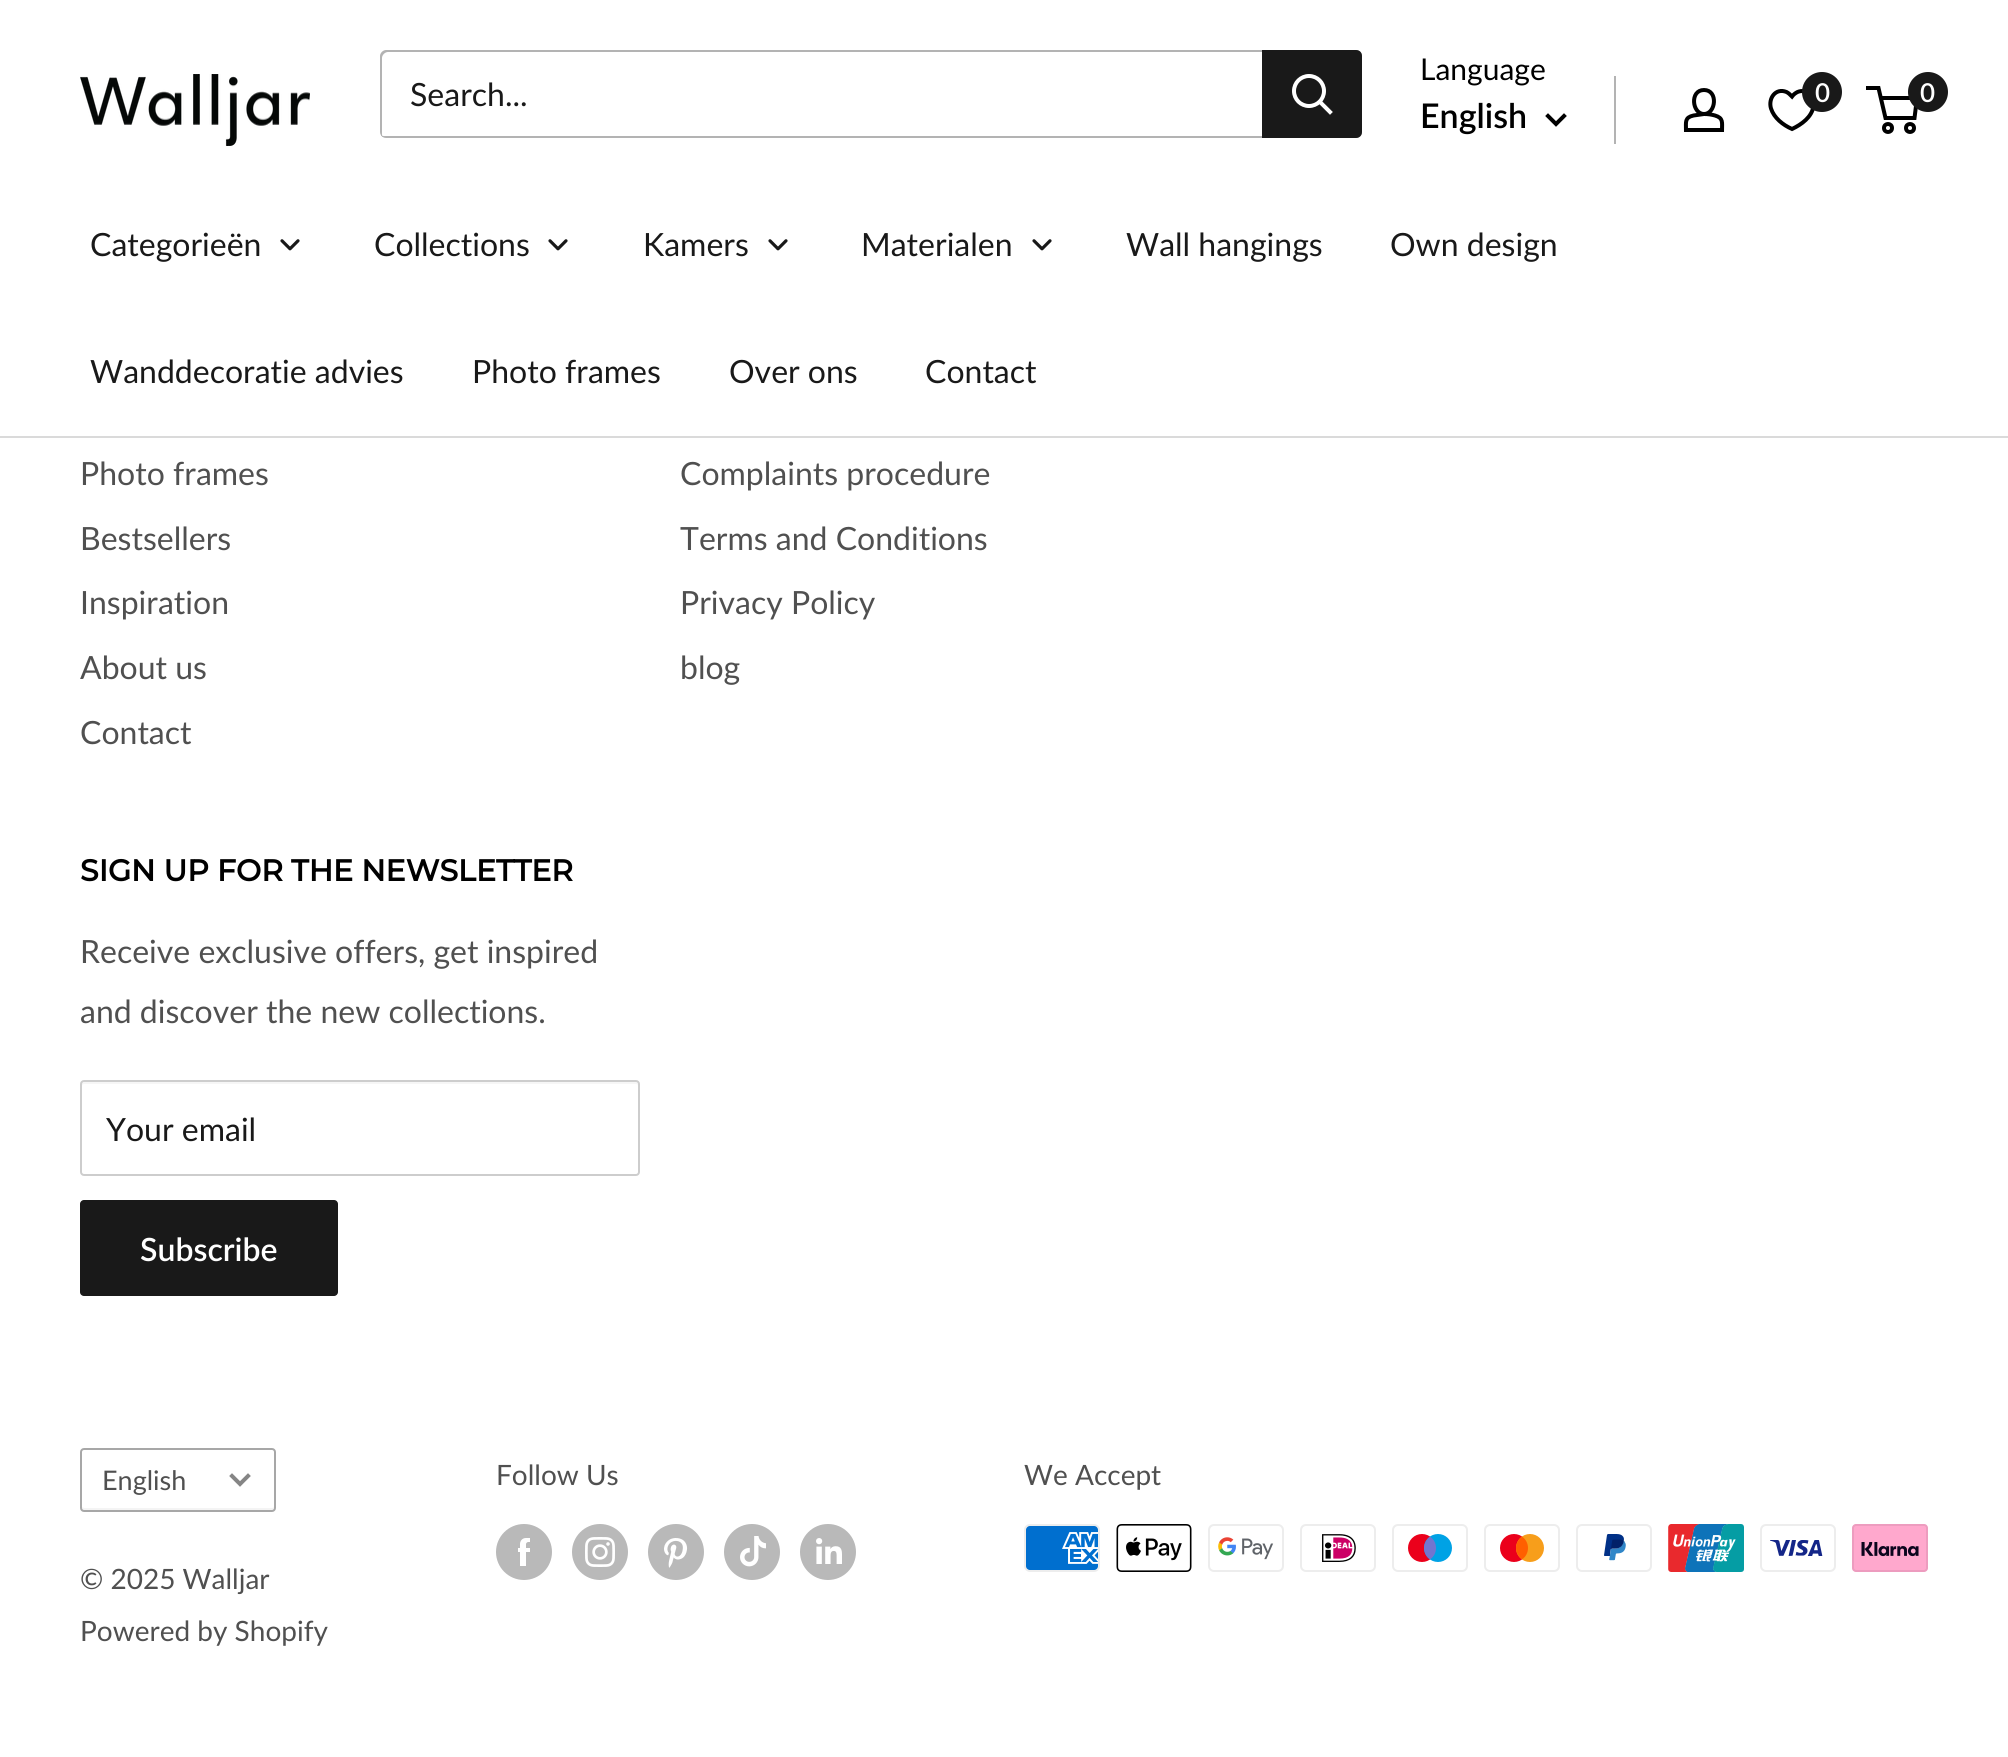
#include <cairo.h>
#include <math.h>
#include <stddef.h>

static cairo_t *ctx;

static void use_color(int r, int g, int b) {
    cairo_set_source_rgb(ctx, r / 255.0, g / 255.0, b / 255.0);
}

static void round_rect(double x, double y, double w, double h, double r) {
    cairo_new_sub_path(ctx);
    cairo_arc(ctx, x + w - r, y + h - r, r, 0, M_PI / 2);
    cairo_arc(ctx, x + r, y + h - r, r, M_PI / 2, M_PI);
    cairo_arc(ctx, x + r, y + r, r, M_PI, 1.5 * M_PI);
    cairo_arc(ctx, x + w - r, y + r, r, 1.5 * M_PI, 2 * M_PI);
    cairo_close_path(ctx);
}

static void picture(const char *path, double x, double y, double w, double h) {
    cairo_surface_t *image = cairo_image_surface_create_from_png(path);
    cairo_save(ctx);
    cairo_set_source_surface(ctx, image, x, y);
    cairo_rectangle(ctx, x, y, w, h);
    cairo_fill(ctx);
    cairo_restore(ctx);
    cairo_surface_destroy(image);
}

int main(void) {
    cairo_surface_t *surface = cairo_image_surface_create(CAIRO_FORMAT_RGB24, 2008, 1757);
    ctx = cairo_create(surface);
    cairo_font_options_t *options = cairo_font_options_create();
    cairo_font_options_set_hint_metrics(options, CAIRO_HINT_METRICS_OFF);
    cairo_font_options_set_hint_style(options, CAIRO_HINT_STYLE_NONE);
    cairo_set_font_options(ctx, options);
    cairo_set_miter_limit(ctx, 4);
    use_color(255, 255, 255);
    cairo_paint(ctx);
    picture("img1.png", 80, 74, 230, 72);
    use_color(179, 179, 179);
    cairo_new_path(ctx);
    cairo_move_to(ctx, 381, 135);
    cairo_curve_to(ctx, 382, 137, 384, 138, 386, 138);
    cairo_line_to(ctx, 1356, 138);
    cairo_curve_to(ctx, 1359, 138, 1362, 135, 1362, 132);
    cairo_line_to(ctx, 1362, 56);
    cairo_curve_to(ctx, 1362, 54, 1361, 52, 1359, 51);
    cairo_curve_to(ctx, 1360, 52, 1360, 53, 1360, 54);
    cairo_line_to(ctx, 1360, 130);
    cairo_curve_to(ctx, 1360, 133, 1357, 136, 1354, 136);
    cairo_line_to(ctx, 384, 136);
    cairo_curve_to(ctx, 383, 136, 382, 136, 381, 135);
    cairo_close_path(ctx);
    cairo_fill(ctx);
    cairo_set_source_rgba(ctx, 0, 0, 0, 0.3);
    cairo_new_path(ctx);
    cairo_move_to(ctx, 388, 52);
    cairo_line_to(ctx, 1358, 52);
    cairo_line_to(ctx, 1361, 53);
    cairo_curve_to(ctx, 1360, 51, 1358, 50, 1356, 50);
    cairo_line_to(ctx, 386, 50);
    cairo_curve_to(ctx, 383, 50, 380, 53, 380, 56);
    cairo_line_to(ctx, 380, 132);
    cairo_curve_to(ctx, 380, 134, 381, 136, 383, 137);
    cairo_curve_to(ctx, 382, 136, 382, 135, 382, 134);
    cairo_line_to(ctx, 382, 58);
    cairo_curve_to(ctx, 382, 55, 385, 52, 388, 52);
    cairo_close_path(ctx);
    cairo_fill(ctx);
    cairo_select_font_face(ctx, "Lato", CAIRO_FONT_SLANT_NORMAL, CAIRO_FONT_WEIGHT_NORMAL);
    cairo_set_font_size(ctx, 32);
    use_color(25, 25, 25);
    cairo_move_to(ctx, 410, 106);
    cairo_show_text(ctx, "Search...");
    cairo_new_path(ctx);
    cairo_move_to(ctx, 1262, 50);
    cairo_line_to(ctx, 1356, 50);
    cairo_curve_to(ctx, 1359.5, 50, 1362, 52.5, 1362, 56);
    cairo_line_to(ctx, 1362, 132);
    cairo_curve_to(ctx, 1362, 135.5, 1359.5, 138, 1356, 138);
    cairo_line_to(ctx, 1262, 138);
    cairo_close_path(ctx);
    cairo_fill(ctx);
    cairo_new_path(ctx);
    cairo_move_to(ctx, 1330, 112);
    cairo_line_to(ctx, 1320, 102);
    use_color(255, 255, 255);
    cairo_set_line_width(ctx, 4);
    cairo_set_line_cap(ctx, CAIRO_LINE_CAP_SQUARE);
    cairo_stroke(ctx);
    cairo_arc(ctx, 1309, 91, 15, 0, 2 * M_PI);
    cairo_set_line_cap(ctx, CAIRO_LINE_CAP_BUTT);
    cairo_stroke(ctx);
    cairo_set_font_size(ctx, 30);
    use_color(0, 0, 0);
    cairo_move_to(ctx, 1420, 80);
    cairo_show_text(ctx, "Language");
    cairo_select_font_face(ctx, "Lato SemiBold", CAIRO_FONT_SLANT_NORMAL, CAIRO_FONT_WEIGHT_NORMAL);
    cairo_set_font_size(ctx, 34);
    cairo_move_to(ctx, 1420, 128);
    cairo_show_text(ctx, "English");
    cairo_new_path(ctx);
    cairo_move_to(ctx, 1564, 116);
    cairo_line_to(ctx, 1556, 124);
    cairo_line_to(ctx, 1548, 116);
    cairo_set_line_cap(ctx, CAIRO_LINE_CAP_SQUARE);
    cairo_stroke(ctx);
    use_color(179, 179, 179);
    cairo_rectangle(ctx, 1614, 76, 2, 68);
    cairo_fill(ctx);
    cairo_new_path(ctx);
    cairo_move_to(ctx, 1704, 114);
    cairo_curve_to(ctx, 1708, 114, 1711.5, 114.5, 1715, 115.5);
    cairo_curve_to(ctx, 1723.5, 118, 1722, 122.5, 1722, 130);
    cairo_line_to(ctx, 1686, 130);
    cairo_curve_to(ctx, 1686, 122, 1684.5, 117.5, 1693.5, 115.5);
    cairo_close_path(ctx);
    cairo_move_to(ctx, 1704, 114);
    cairo_curve_to(ctx, 1692, 114, 1689.5, 90, 1704, 90);
    cairo_curve_to(ctx, 1718.5, 90, 1716, 114, 1704, 114);
    cairo_close_path(ctx);
    use_color(0, 0, 0);
    cairo_set_line_cap(ctx, CAIRO_LINE_CAP_BUTT);
    cairo_stroke(ctx);
    cairo_new_path(ctx);
    cairo_move_to(ctx, 1792, 129);
    cairo_curve_to(ctx, 1783, 125, 1774, 118, 1771, 108.5);
    cairo_curve_to(ctx, 1768, 98.5, 1775.5, 87.5, 1786.5, 92);
    cairo_curve_to(ctx, 1788.5, 93, 1790, 94.5, 1792, 96.5);
    cairo_curve_to(ctx, 1793.5, 94.5, 1795.5, 93, 1797.5, 92);
    cairo_curve_to(ctx, 1807, 88, 1815, 97, 1813.5, 106);
    cairo_curve_to(ctx, 1812, 117, 1801.5, 124.5, 1792, 129);
    cairo_close_path(ctx);
    cairo_stroke(ctx);
    use_color(25, 25, 25);
    cairo_arc(ctx, 1822, 92, 20, 0, 2 * M_PI);
    cairo_fill(ctx);
    cairo_set_font_size(ctx, 26);
    use_color(255, 255, 255);
    cairo_move_to(ctx, 1815, 102);
    cairo_show_text(ctx, "0");
    cairo_new_path(ctx);
    cairo_arc(ctx, 1888, 128, 4, 0, 2 * M_PI);
    use_color(0, 0, 0);
    cairo_stroke(ctx);
    cairo_arc(ctx, 1910, 128, 4, 0, 2 * M_PI);
    cairo_stroke(ctx);
    cairo_new_path(ctx);
    cairo_move_to(ctx, 1880.5, 98);
    cairo_line_to(ctx, 1917, 98);
    cairo_line_to(ctx, 1914.5, 118);
    cairo_line_to(ctx, 1885.5, 118);
    cairo_line_to(ctx, 1878.5, 88);
    cairo_line_to(ctx, 1866, 88);
    cairo_stroke(ctx);
    use_color(25, 25, 25);
    cairo_arc(ctx, 1928, 92, 20, 0, 2 * M_PI);
    cairo_fill(ctx);
    use_color(255, 255, 255);
    cairo_move_to(ctx, 1920, 102);
    cairo_show_text(ctx, "0");
    use_color(218, 218, 218);
    cairo_rectangle(ctx, 0, 436, 2008, 2);
    cairo_fill(ctx);
    cairo_select_font_face(ctx, "Lato", CAIRO_FONT_SLANT_NORMAL, CAIRO_FONT_WEIGHT_NORMAL);
    cairo_set_font_size(ctx, 32);
    use_color(25, 25, 25);
    cairo_move_to(ctx, 90, 256);
    cairo_show_text(ctx, "Categorieën");
    picture("img2.png", 280, 239, 20, 12);
    cairo_move_to(ctx, 374, 256);
    cairo_show_text(ctx, "Collections");
    picture("img2.png", 548, 239, 20, 12);
    cairo_move_to(ctx, 643, 256);
    cairo_show_text(ctx, "Kamers");
    picture("img2.png", 768, 239, 20, 12);
    cairo_move_to(ctx, 861, 256);
    cairo_show_text(ctx, "Materialen");
    picture("img2.png", 1032, 239, 20, 12);
    cairo_move_to(ctx, 1126, 256);
    cairo_show_text(ctx, "Wall hangings");
    cairo_move_to(ctx, 1390, 256);
    cairo_show_text(ctx, "Own design");
    cairo_move_to(ctx, 90, 383);
    cairo_show_text(ctx, "Wanddecoratie advies");
    cairo_move_to(ctx, 472, 383);
    cairo_show_text(ctx, "Photo frames");
    cairo_move_to(ctx, 729, 383);
    cairo_show_text(ctx, "Over ons");
    cairo_move_to(ctx, 925, 383);
    cairo_show_text(ctx, "Contact");
    use_color(80, 80, 80);
    cairo_move_to(ctx, 80, 485);
    cairo_show_text(ctx, "Photo frames");
    cairo_move_to(ctx, 80, 550);
    cairo_show_text(ctx, "Bestsellers");
    cairo_move_to(ctx, 80, 614);
    cairo_show_text(ctx, "Inspiration");
    cairo_move_to(ctx, 80, 679);
    cairo_show_text(ctx, "About us");
    cairo_move_to(ctx, 80, 744);
    cairo_show_text(ctx, "Contact");
    cairo_move_to(ctx, 680, 485);
    cairo_show_text(ctx, "Complaints procedure");
    cairo_move_to(ctx, 680, 550);
    cairo_show_text(ctx, "Terms and Conditions");
    cairo_move_to(ctx, 680, 614);
    cairo_show_text(ctx, "Privacy Policy");
    cairo_move_to(ctx, 680, 679);
    cairo_show_text(ctx, "blog");
    cairo_select_font_face(ctx, "Montserrat", CAIRO_FONT_SLANT_NORMAL, CAIRO_FONT_WEIGHT_BOLD);
    cairo_set_font_size(ctx, 30);
    use_color(0, 0, 0);
    cairo_move_to(ctx, 80, 881);
    cairo_show_text(ctx, "SIGN UP FOR THE NEWSLETTER");
    cairo_select_font_face(ctx, "Lato", CAIRO_FONT_SLANT_NORMAL, CAIRO_FONT_WEIGHT_NORMAL);
    cairo_set_font_size(ctx, 32);
    use_color(80, 80, 80);
    cairo_move_to(ctx, 80, 963);
    cairo_show_text(ctx, "Receive exclusive offers, get inspired");
    cairo_move_to(ctx, 80, 1023);
    cairo_show_text(ctx, "and discover the new collections.");
    use_color(246, 246, 246);
    cairo_new_path(ctx);
    cairo_move_to(ctx, 84, 1084);
    cairo_line_to(ctx, 636, 1084);
    cairo_curve_to(ctx, 637, 1084, 638, 1085, 638, 1086);
    cairo_curve_to(ctx, 638, 1084, 638, 1082, 636, 1082);
    cairo_line_to(ctx, 84, 1082);
    cairo_line_to(ctx, 82, 1083);
    cairo_line_to(ctx, 82, 1086);
    cairo_curve_to(ctx, 82, 1085, 83, 1084, 84, 1084);
    cairo_close_path(ctx);
    cairo_fill(ctx);
    round_rect(81, 1081, 558, 94, 3);
    use_color(205, 205, 205);
    cairo_set_line_width(ctx, 2);
    cairo_stroke(ctx);
    use_color(25, 25, 25);
    cairo_move_to(ctx, 106, 1141);
    cairo_show_text(ctx, "Your email");
    round_rect(80, 1200, 258, 96, 4);
    cairo_fill(ctx);
    cairo_select_font_face(ctx, "Lato SemiBold", CAIRO_FONT_SLANT_NORMAL, CAIRO_FONT_WEIGHT_NORMAL);
    use_color(255, 255, 255);
    cairo_move_to(ctx, 140, 1261);
    cairo_show_text(ctx, "Subscribe");
    use_color(244, 244, 244);
    cairo_new_path(ctx);
    cairo_move_to(ctx, 82, 1506);
    cairo_curve_to(ctx, 82, 1508, 82, 1510, 84, 1510);
    cairo_line_to(ctx, 272, 1510);
    cairo_curve_to(ctx, 274, 1510, 274, 1508, 274, 1506);
    cairo_curve_to(ctx, 274, 1507, 273, 1508, 272, 1508);
    cairo_line_to(ctx, 84, 1508);
    cairo_line_to(ctx, 82, 1507);
    cairo_close_path(ctx);
    cairo_fill(ctx);
    round_rect(81, 1449, 194, 62, 3);
    cairo_set_source_rgba(ctx, 0.314, 0.314, 0.314, 0.5);
    cairo_stroke(ctx);
    cairo_select_font_face(ctx, "Lato", CAIRO_FONT_SLANT_NORMAL, CAIRO_FONT_WEIGHT_NORMAL);
    cairo_set_font_size(ctx, 27);
    use_color(80, 80, 80);
    cairo_move_to(ctx, 102, 1490);
    cairo_show_text(ctx, "English");
    cairo_new_path(ctx);
    cairo_move_to(ctx, 248, 1476);
    cairo_line_to(ctx, 240, 1484);
    cairo_line_to(ctx, 232, 1476);
    use_color(133, 133, 133);
    cairo_set_line_width(ctx, 4);
    cairo_set_line_cap(ctx, CAIRO_LINE_CAP_SQUARE);
    cairo_stroke(ctx);
    cairo_set_font_size(ctx, 28);
    use_color(80, 80, 80);
    cairo_move_to(ctx, 80, 1589);
    cairo_show_text(ctx, "© 2025 Walljar");
    cairo_move_to(ctx, 80, 1641);
    cairo_show_text(ctx, "Powered by Shopify");
    cairo_move_to(ctx, 496, 1485);
    cairo_show_text(ctx, "Follow Us");
    picture("img3.png", 496, 1524, 56, 56);
    picture("img4.png", 572, 1524, 56, 56);
    picture("img5.png", 648, 1524, 56, 56);
    picture("img6.png", 724, 1524, 56, 56);
    picture("img7.png", 800, 1524, 56, 56);
    cairo_move_to(ctx, 1024, 1485);
    cairo_show_text(ctx, "We Accept");
    picture("img8.png", 1024, 1524, 76, 48);
    picture("img9.png", 1116, 1524, 76, 48);
    picture("img10.png", 1208, 1524, 76, 48);
    picture("img11.png", 1300, 1524, 76, 48);
    picture("img12.png", 1392, 1524, 76, 48);
    picture("img13.png", 1484, 1524, 76, 48);
    picture("img14.png", 1576, 1524, 76, 48);
    picture("img15.png", 1668, 1524, 76, 48);
    picture("img16.png", 1760, 1524, 76, 48);
    picture("img17.png", 1852, 1524, 76, 48);
    cairo_surface_write_to_png(surface, "result.png");
    cairo_font_options_destroy(options);
    cairo_destroy(ctx);
    cairo_surface_destroy(surface);
    return 0;
}
